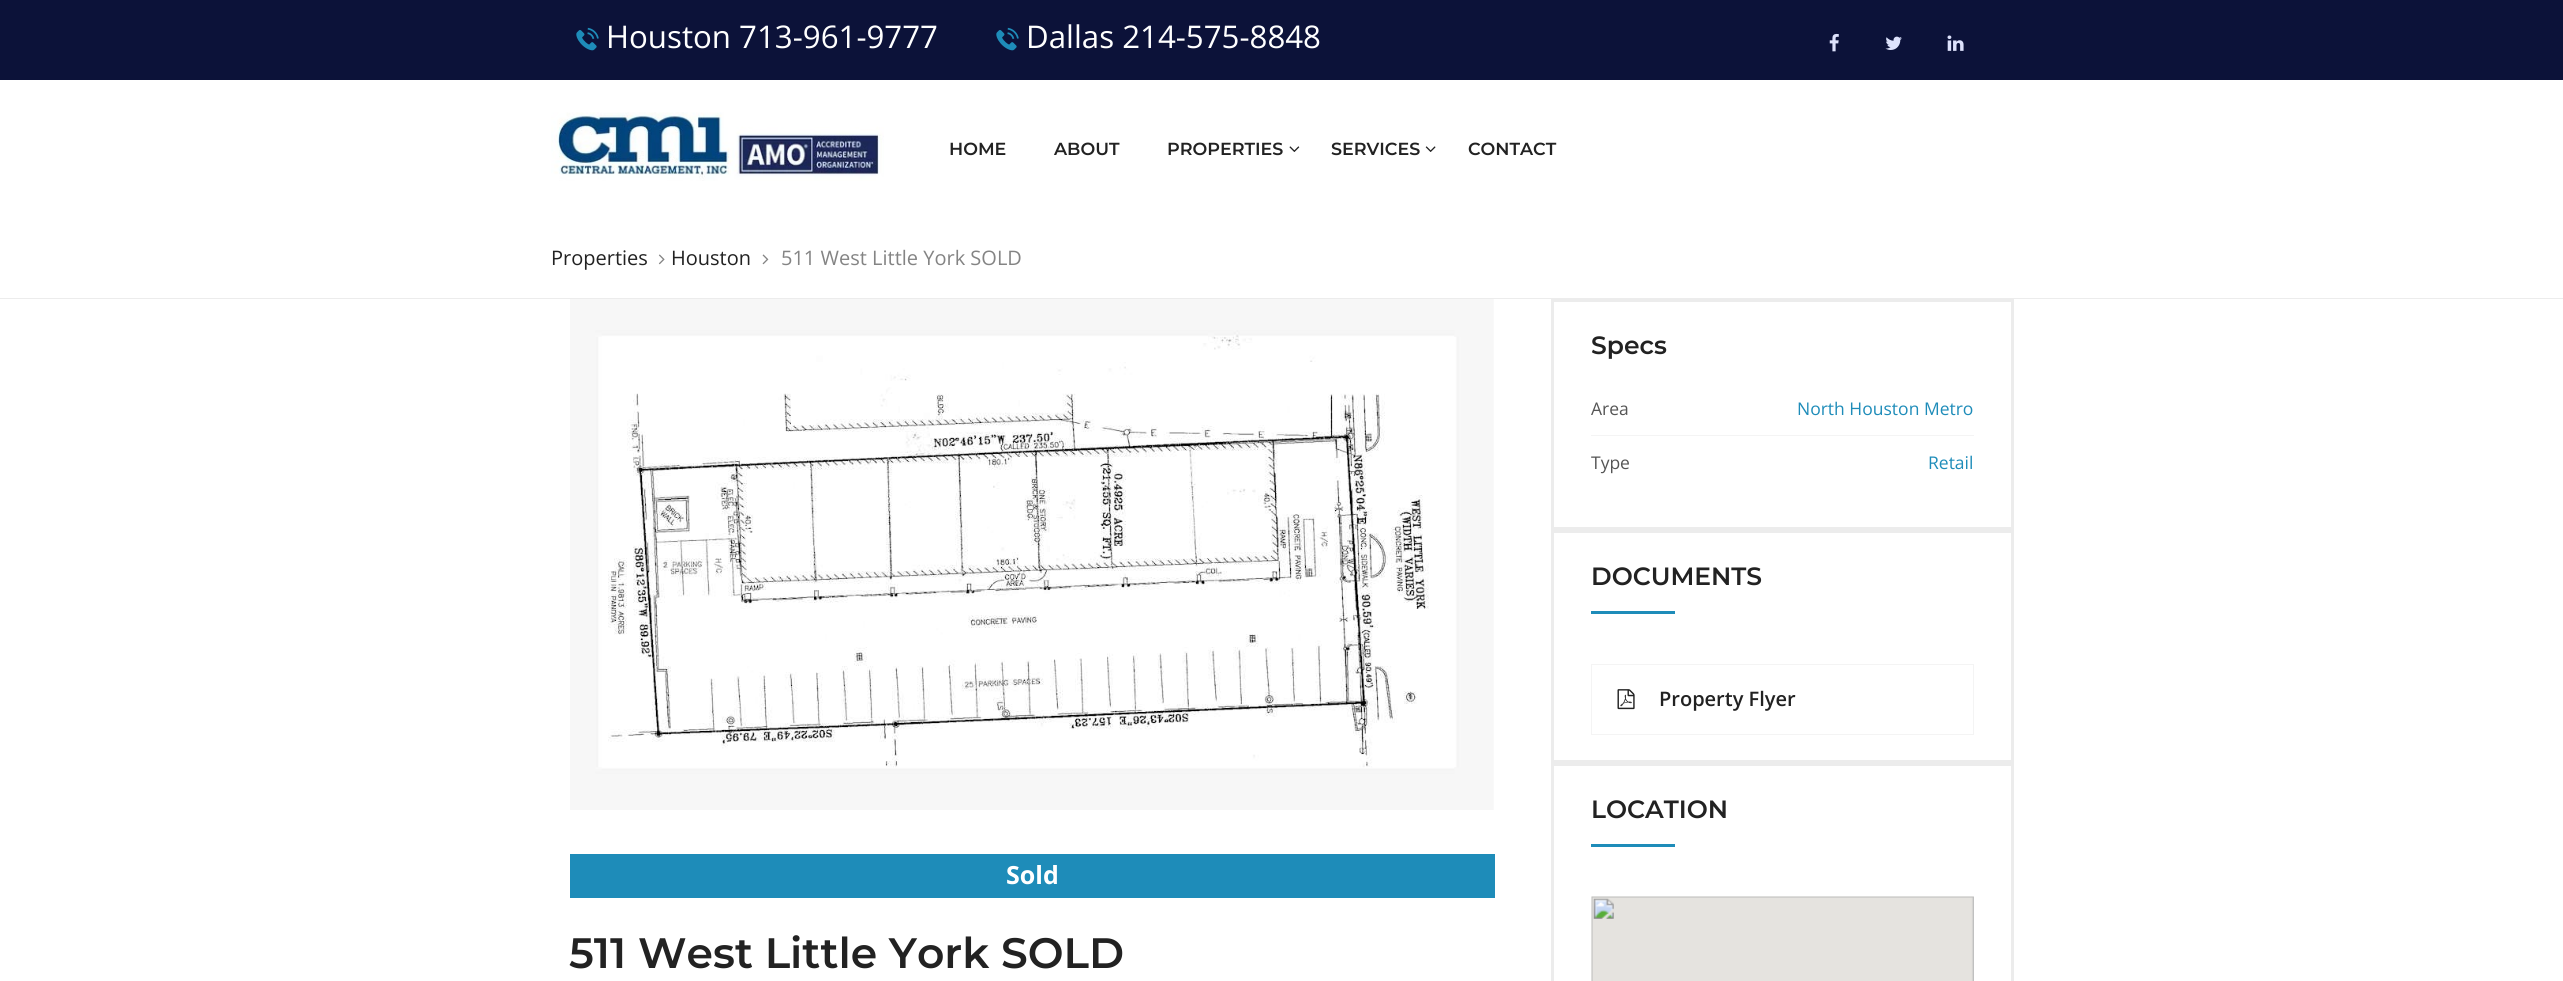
#include <cairo.h>
#include <math.h>
#include <stddef.h>

static cairo_t *ctx;

static void use_color(int r, int g, int b) {
    cairo_set_source_rgb(ctx, r / 255.0, g / 255.0, b / 255.0);
}

static void picture(const char *path, double x, double y, double w, double h) {
    cairo_surface_t *image = cairo_image_surface_create_from_png(path);
    cairo_save(ctx);
    cairo_set_source_surface(ctx, image, x, y);
    cairo_rectangle(ctx, x, y, w, h);
    cairo_fill(ctx);
    cairo_restore(ctx);
    cairo_surface_destroy(image);
}

int main(void) {
    cairo_surface_t *surface = cairo_image_surface_create(CAIRO_FORMAT_RGB24, 2563, 981);
    ctx = cairo_create(surface);
    cairo_font_options_t *options = cairo_font_options_create();
    cairo_font_options_set_hint_metrics(options, CAIRO_HINT_METRICS_OFF);
    cairo_font_options_set_hint_style(options, CAIRO_HINT_STYLE_NONE);
    cairo_set_font_options(ctx, options);
    cairo_set_miter_limit(ctx, 4);
    use_color(255, 255, 255);
    cairo_paint(ctx);
    use_color(12, 18, 57);
    cairo_rectangle(ctx, 0, 0, 2563, 80);
    cairo_fill(ctx);
    picture("img1.png", 576, 27, 23, 24);
    cairo_select_font_face(ctx, "Open Sans", CAIRO_FONT_SLANT_NORMAL, CAIRO_FONT_WEIGHT_NORMAL);
    cairo_set_font_size(ctx, 31.25);
    use_color(255, 255, 255);
    cairo_move_to(ctx, 606, 48);
    cairo_show_text(ctx, "Houston 713-961-9777");
    picture("img1.png", 996, 27, 23, 24);
    cairo_move_to(ctx, 1026, 48);
    cairo_show_text(ctx, "Dallas 214-575-8848");
    picture("img2.png", 1829, 33, 10, 19);
    picture("img3.png", 1885, 36, 17, 14);
    picture("img4.png", 1947, 35, 17, 16);
    picture("img5.png", 551, 112, 333, 69);
    cairo_select_font_face(ctx, "Montserrat SemiBold", CAIRO_FONT_SLANT_NORMAL, CAIRO_FONT_WEIGHT_NORMAL);
    cairo_set_font_size(ctx, 17.5);
    use_color(34, 34, 34);
    cairo_move_to(ctx, 949, 155);
    cairo_show_text(ctx, "HOME");
    cairo_move_to(ctx, 1054, 155);
    cairo_show_text(ctx, "ABOUT");
    cairo_move_to(ctx, 1167, 155);
    cairo_show_text(ctx, "PROPERTIES");
    picture("img6.png", 1289, 146, 11, 6);
    cairo_move_to(ctx, 1331, 155);
    cairo_show_text(ctx, "SERVICES");
    picture("img7.png", 1425, 146, 11, 6);
    cairo_move_to(ctx, 1468, 155);
    cairo_show_text(ctx, "CONTACT");
    use_color(236, 236, 236);
    cairo_rectangle(ctx, 0, 298, 2563, 1);
    cairo_fill(ctx);
    cairo_select_font_face(ctx, "Open Sans", CAIRO_FONT_SLANT_NORMAL, CAIRO_FONT_WEIGHT_NORMAL);
    cairo_set_font_size(ctx, 20);
    use_color(34, 34, 34);
    cairo_move_to(ctx, 551, 265);
    cairo_show_text(ctx, "Properties");
    picture("img8.png", 658, 254, 7, 11);
    cairo_move_to(ctx, 671, 265);
    cairo_show_text(ctx, "Houston");
    picture("img9.png", 762, 254, 7, 11);
    use_color(132, 132, 132);
    cairo_move_to(ctx, 781, 265);
    cairo_show_text(ctx, "511 West Little York SOLD");
    cairo_rectangle(ctx, 1552.5, 300.5, 460, 228);
    use_color(236, 236, 236);
    cairo_set_line_width(ctx, 3);
    cairo_stroke(ctx);
    cairo_select_font_face(ctx, "Montserrat SemiBold", CAIRO_FONT_SLANT_NORMAL, CAIRO_FONT_WEIGHT_NORMAL);
    cairo_set_font_size(ctx, 25);
    use_color(34, 34, 34);
    cairo_move_to(ctx, 1591, 354);
    cairo_show_text(ctx, "Specs");
    use_color(244, 244, 244);
    cairo_rectangle(ctx, 1591, 435, 383, 1);
    cairo_fill(ctx);
    cairo_select_font_face(ctx, "Open Sans", CAIRO_FONT_SLANT_NORMAL, CAIRO_FONT_WEIGHT_NORMAL);
    cairo_set_font_size(ctx, 17.5);
    use_color(85, 85, 85);
    cairo_move_to(ctx, 1591, 415);
    cairo_show_text(ctx, "Area");
    use_color(30, 140, 185);
    cairo_move_to(ctx, 1797, 415);
    cairo_show_text(ctx, "North Houston Metro");
    use_color(85, 85, 85);
    cairo_move_to(ctx, 1591, 469);
    cairo_show_text(ctx, "Type");
    use_color(30, 140, 185);
    cairo_move_to(ctx, 1928, 469);
    cairo_show_text(ctx, "Retail");
    cairo_rectangle(ctx, 1552.5, 531.5, 460, 230);
    use_color(236, 236, 236);
    cairo_stroke(ctx);
    cairo_select_font_face(ctx, "Montserrat SemiBold", CAIRO_FONT_SLANT_NORMAL, CAIRO_FONT_WEIGHT_NORMAL);
    cairo_set_font_size(ctx, 25);
    use_color(34, 34, 34);
    cairo_move_to(ctx, 1591, 585);
    cairo_show_text(ctx, "DOCUMENTS");
    use_color(30, 140, 185);
    cairo_rectangle(ctx, 1591, 611, 84, 3);
    cairo_fill(ctx);
    cairo_rectangle(ctx, 1591.5, 664.5, 382, 70);
    use_color(244, 244, 244);
    cairo_set_line_width(ctx, 1);
    cairo_stroke(ctx);
    picture("img10.png", 1617, 689, 18, 21);
    cairo_select_font_face(ctx, "Open Sans SemiBold", CAIRO_FONT_SLANT_NORMAL, CAIRO_FONT_WEIGHT_NORMAL);
    cairo_set_font_size(ctx, 20);
    use_color(34, 34, 34);
    cairo_move_to(ctx, 1659, 706);
    cairo_show_text(ctx, "Property Flyer");
    cairo_rectangle(ctx, 1552.5, 764.5, 460, 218);
    use_color(236, 236, 236);
    cairo_set_line_width(ctx, 3);
    cairo_stroke(ctx);
    cairo_select_font_face(ctx, "Montserrat SemiBold", CAIRO_FONT_SLANT_NORMAL, CAIRO_FONT_WEIGHT_NORMAL);
    cairo_set_font_size(ctx, 25);
    use_color(34, 34, 34);
    cairo_move_to(ctx, 1591, 818);
    cairo_show_text(ctx, "LOCATION");
    use_color(30, 140, 185);
    cairo_rectangle(ctx, 1591, 844, 84, 3);
    cairo_fill(ctx);
    picture("img11.png", 1591, 896, 383, 85);
    picture("img12.png", 570, 299, 924, 511);
    cairo_rectangle(ctx, 570, 854, 925, 44);
    cairo_fill(ctx);
    cairo_select_font_face(ctx, "Open Sans", CAIRO_FONT_SLANT_NORMAL, CAIRO_FONT_WEIGHT_BOLD);
    use_color(255, 255, 255);
    cairo_move_to(ctx, 1006, 884);
    cairo_show_text(ctx, "Sold");
    cairo_select_font_face(ctx, "Montserrat SemiBold", CAIRO_FONT_SLANT_NORMAL, CAIRO_FONT_WEIGHT_NORMAL);
    cairo_set_font_size(ctx, 42.5);
    use_color(34, 34, 34);
    cairo_move_to(ctx, 569, 968);
    cairo_show_text(ctx, "511 West Little York SOLD");
    cairo_surface_write_to_png(surface, "result.png");
    cairo_font_options_destroy(options);
    cairo_destroy(ctx);
    cairo_surface_destroy(surface);
    return 0;
}
